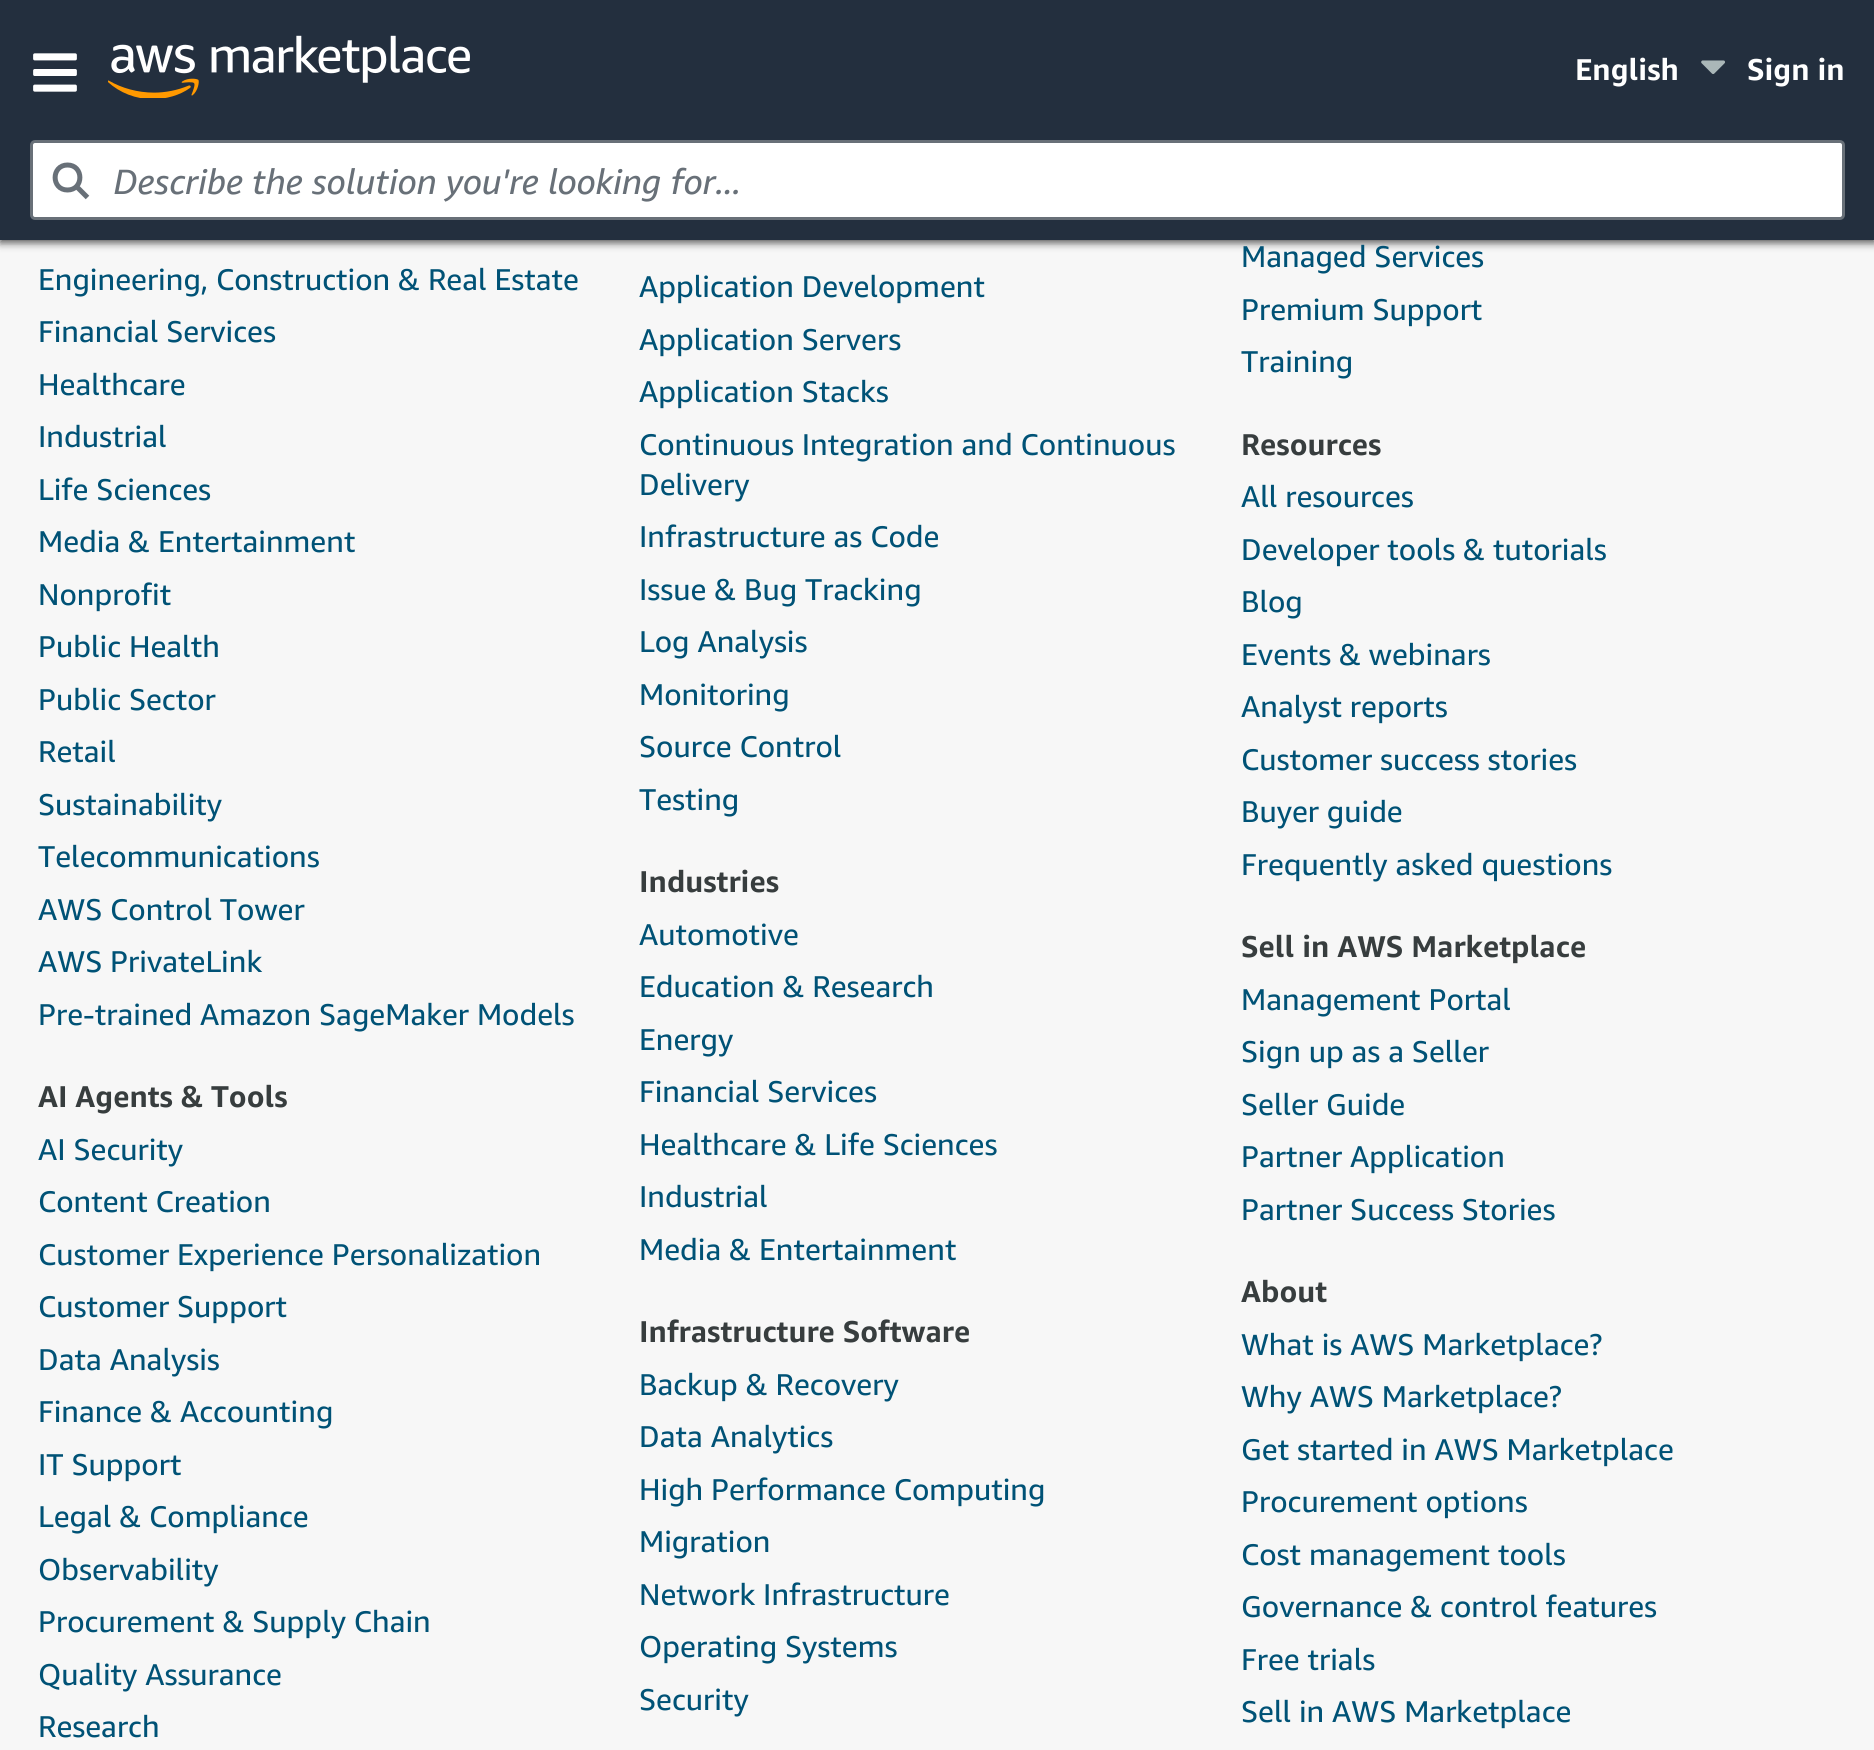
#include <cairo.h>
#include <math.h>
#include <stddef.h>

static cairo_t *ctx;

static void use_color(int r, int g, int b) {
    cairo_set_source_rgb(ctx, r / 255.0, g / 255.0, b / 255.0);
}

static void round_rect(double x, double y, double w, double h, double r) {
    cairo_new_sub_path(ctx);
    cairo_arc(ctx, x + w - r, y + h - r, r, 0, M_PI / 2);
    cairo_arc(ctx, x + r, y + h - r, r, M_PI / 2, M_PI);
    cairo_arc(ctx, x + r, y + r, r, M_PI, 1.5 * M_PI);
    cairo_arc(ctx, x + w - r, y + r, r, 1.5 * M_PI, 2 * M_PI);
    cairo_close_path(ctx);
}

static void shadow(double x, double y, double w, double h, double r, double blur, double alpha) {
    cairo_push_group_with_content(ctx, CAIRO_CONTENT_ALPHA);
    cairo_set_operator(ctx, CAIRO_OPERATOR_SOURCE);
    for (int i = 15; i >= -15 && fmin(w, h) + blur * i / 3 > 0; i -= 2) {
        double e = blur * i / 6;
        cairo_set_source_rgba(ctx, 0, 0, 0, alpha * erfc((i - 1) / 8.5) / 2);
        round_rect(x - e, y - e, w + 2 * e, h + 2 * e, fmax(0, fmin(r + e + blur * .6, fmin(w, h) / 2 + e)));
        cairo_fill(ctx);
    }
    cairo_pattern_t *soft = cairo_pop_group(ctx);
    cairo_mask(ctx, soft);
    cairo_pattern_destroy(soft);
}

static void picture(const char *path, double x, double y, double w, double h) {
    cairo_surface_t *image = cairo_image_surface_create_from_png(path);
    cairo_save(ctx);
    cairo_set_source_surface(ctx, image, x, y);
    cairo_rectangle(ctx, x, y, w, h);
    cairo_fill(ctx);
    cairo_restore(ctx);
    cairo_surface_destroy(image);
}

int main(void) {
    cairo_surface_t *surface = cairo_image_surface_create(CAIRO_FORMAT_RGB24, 1874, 1750);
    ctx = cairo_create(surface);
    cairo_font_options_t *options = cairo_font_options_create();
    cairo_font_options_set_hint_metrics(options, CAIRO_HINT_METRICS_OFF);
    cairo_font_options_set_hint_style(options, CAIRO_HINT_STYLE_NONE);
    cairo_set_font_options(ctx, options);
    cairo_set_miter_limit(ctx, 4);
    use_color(247, 247, 247);
    cairo_paint(ctx);
    use_color(90, 90, 90);
    shadow(0, 3, 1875, 240, 0, 4, 1);
    use_color(35, 47, 62);
    cairo_rectangle(ctx, 0, 0, 1874, 240);
    cairo_fill(ctx);
    picture("img1.png", 33, 53, 44, 39);
    picture("img2.png", 108, 35, 362, 63);
    cairo_select_font_face(ctx, "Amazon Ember", CAIRO_FONT_SLANT_NORMAL, CAIRO_FONT_WEIGHT_BOLD);
    cairo_set_font_size(ctx, 30);
    use_color(255, 255, 255);
    cairo_move_to(ctx, 1575, 80);
    cairo_show_text(ctx, "English");
    picture("img3.png", 1701, 60, 24, 14);
    cairo_move_to(ctx, 1747, 80);
    cairo_show_text(ctx, "Sign in");
    round_rect(31.5, 141.5, 1812, 77, 3.5);
    cairo_fill_preserve(ctx);
    use_color(104, 112, 120);
    cairo_set_line_width(ctx, 3);
    cairo_stroke(ctx);
    cairo_new_path(ctx);
    cairo_move_to(ctx, 77.5, 187.5);
    cairo_line_to(ctx, 87.5, 197.5);
    cairo_move_to(ctx, 67.5, 190);
    cairo_curve_to(ctx, 84, 190, 84, 165, 67.5, 165);
    cairo_curve_to(ctx, 51, 165, 51, 190, 67.5, 190);
    cairo_close_path(ctx);
    cairo_set_line_width(ctx, 5);
    cairo_set_line_join(ctx, CAIRO_LINE_JOIN_ROUND);
    cairo_stroke(ctx);
    cairo_select_font_face(ctx, "Amazon Ember", CAIRO_FONT_SLANT_ITALIC, CAIRO_FONT_WEIGHT_NORMAL);
    cairo_set_font_size(ctx, 35);
    cairo_move_to(ctx, 113, 194);
    cairo_show_text(ctx, "Describe the solution you're looking for...");
    cairo_select_font_face(ctx, "Amazon Ember", CAIRO_FONT_SLANT_NORMAL, CAIRO_FONT_WEIGHT_NORMAL);
    cairo_set_font_size(ctx, 30);
    use_color(0, 82, 118);
    cairo_move_to(ctx, 38, 290);
    cairo_show_text(ctx, "Engineering, Construction & Real Estate");
    cairo_move_to(ctx, 38, 342);
    cairo_show_text(ctx, "Financial Services");
    cairo_move_to(ctx, 38, 395);
    cairo_show_text(ctx, "Healthcare");
    cairo_move_to(ctx, 38, 447);
    cairo_show_text(ctx, "Industrial");
    cairo_move_to(ctx, 38, 500);
    cairo_show_text(ctx, "Life Sciences");
    cairo_move_to(ctx, 38, 552);
    cairo_show_text(ctx, "Media & Entertainment");
    cairo_move_to(ctx, 38, 605);
    cairo_show_text(ctx, "Nonprofit");
    cairo_move_to(ctx, 38, 657);
    cairo_show_text(ctx, "Public Health");
    cairo_move_to(ctx, 38, 710);
    cairo_show_text(ctx, "Public Sector");
    cairo_move_to(ctx, 38, 762);
    cairo_show_text(ctx, "Retail");
    cairo_move_to(ctx, 38, 815);
    cairo_show_text(ctx, "Sustainability");
    cairo_move_to(ctx, 38, 867);
    cairo_show_text(ctx, "Telecommunications");
    cairo_move_to(ctx, 38, 920);
    cairo_show_text(ctx, "AWS Control Tower");
    cairo_move_to(ctx, 38, 972);
    cairo_show_text(ctx, "AWS PrivateLink");
    cairo_move_to(ctx, 38, 1025);
    cairo_show_text(ctx, "Pre-trained Amazon SageMaker Models");
    cairo_move_to(ctx, 639, 297);
    cairo_show_text(ctx, "Application Development");
    cairo_move_to(ctx, 639, 350);
    cairo_show_text(ctx, "Application Servers");
    cairo_move_to(ctx, 639, 402);
    cairo_show_text(ctx, "Application Stacks");
    cairo_move_to(ctx, 639, 455);
    cairo_show_text(ctx, "Continuous Integration and Continuous");
    cairo_move_to(ctx, 639, 495);
    cairo_show_text(ctx, "Delivery");
    cairo_move_to(ctx, 639, 547);
    cairo_show_text(ctx, "Infrastructure as Code");
    cairo_move_to(ctx, 639, 600);
    cairo_show_text(ctx, "Issue & Bug Tracking");
    cairo_move_to(ctx, 639, 652);
    cairo_show_text(ctx, "Log Analysis");
    cairo_move_to(ctx, 639, 705);
    cairo_show_text(ctx, "Monitoring");
    cairo_move_to(ctx, 639, 757);
    cairo_show_text(ctx, "Source Control");
    cairo_move_to(ctx, 639, 810);
    cairo_show_text(ctx, "Testing");
    cairo_move_to(ctx, 1241, 267);
    cairo_show_text(ctx, "Managed Services");
    cairo_move_to(ctx, 1241, 320);
    cairo_show_text(ctx, "Premium Support");
    cairo_move_to(ctx, 1241, 372);
    cairo_show_text(ctx, "Training");
    cairo_select_font_face(ctx, "Amazon Ember", CAIRO_FONT_SLANT_NORMAL, CAIRO_FONT_WEIGHT_BOLD);
    use_color(55, 61, 62);
    cairo_move_to(ctx, 1241, 455);
    cairo_show_text(ctx, "Resources");
    cairo_select_font_face(ctx, "Amazon Ember", CAIRO_FONT_SLANT_NORMAL, CAIRO_FONT_WEIGHT_NORMAL);
    use_color(0, 82, 118);
    cairo_move_to(ctx, 1241, 507);
    cairo_show_text(ctx, "All resources");
    cairo_move_to(ctx, 1241, 560);
    cairo_show_text(ctx, "Developer tools & tutorials");
    cairo_move_to(ctx, 1241, 612);
    cairo_show_text(ctx, "Blog");
    cairo_move_to(ctx, 1241, 665);
    cairo_show_text(ctx, "Events & webinars");
    cairo_move_to(ctx, 1241, 717);
    cairo_show_text(ctx, "Analyst reports");
    cairo_move_to(ctx, 1241, 770);
    cairo_show_text(ctx, "Customer success stories");
    cairo_move_to(ctx, 1241, 822);
    cairo_show_text(ctx, "Buyer guide");
    cairo_move_to(ctx, 1241, 875);
    cairo_show_text(ctx, "Frequently asked questions");
    cairo_select_font_face(ctx, "Amazon Ember", CAIRO_FONT_SLANT_NORMAL, CAIRO_FONT_WEIGHT_BOLD);
    use_color(55, 61, 62);
    cairo_move_to(ctx, 38, 1107);
    cairo_show_text(ctx, "AI Agents & Tools");
    cairo_select_font_face(ctx, "Amazon Ember", CAIRO_FONT_SLANT_NORMAL, CAIRO_FONT_WEIGHT_NORMAL);
    use_color(0, 82, 118);
    cairo_move_to(ctx, 38, 1160);
    cairo_show_text(ctx, "AI Security");
    cairo_move_to(ctx, 38, 1212);
    cairo_show_text(ctx, "Content Creation");
    cairo_move_to(ctx, 38, 1265);
    cairo_show_text(ctx, "Customer Experience Personalization");
    cairo_move_to(ctx, 38, 1317);
    cairo_show_text(ctx, "Customer Support");
    cairo_move_to(ctx, 38, 1370);
    cairo_show_text(ctx, "Data Analysis");
    cairo_move_to(ctx, 38, 1422);
    cairo_show_text(ctx, "Finance & Accounting");
    cairo_move_to(ctx, 38, 1475);
    cairo_show_text(ctx, "IT Support");
    cairo_move_to(ctx, 38, 1527);
    cairo_show_text(ctx, "Legal & Compliance");
    cairo_move_to(ctx, 38, 1580);
    cairo_show_text(ctx, "Observability");
    cairo_move_to(ctx, 38, 1632);
    cairo_show_text(ctx, "Procurement & Supply Chain");
    cairo_move_to(ctx, 38, 1685);
    cairo_show_text(ctx, "Quality Assurance");
    cairo_move_to(ctx, 38, 1737);
    cairo_show_text(ctx, "Research");
    cairo_select_font_face(ctx, "Amazon Ember", CAIRO_FONT_SLANT_NORMAL, CAIRO_FONT_WEIGHT_BOLD);
    use_color(55, 61, 62);
    cairo_move_to(ctx, 639, 892);
    cairo_show_text(ctx, "Industries");
    cairo_select_font_face(ctx, "Amazon Ember", CAIRO_FONT_SLANT_NORMAL, CAIRO_FONT_WEIGHT_NORMAL);
    use_color(0, 82, 118);
    cairo_move_to(ctx, 639, 945);
    cairo_show_text(ctx, "Automotive");
    cairo_move_to(ctx, 639, 997);
    cairo_show_text(ctx, "Education & Research");
    cairo_move_to(ctx, 639, 1050);
    cairo_show_text(ctx, "Energy");
    cairo_move_to(ctx, 639, 1102);
    cairo_show_text(ctx, "Financial Services");
    cairo_move_to(ctx, 639, 1155);
    cairo_show_text(ctx, "Healthcare & Life Sciences");
    cairo_move_to(ctx, 639, 1207);
    cairo_show_text(ctx, "Industrial");
    cairo_move_to(ctx, 639, 1260);
    cairo_show_text(ctx, "Media & Entertainment");
    cairo_select_font_face(ctx, "Amazon Ember", CAIRO_FONT_SLANT_NORMAL, CAIRO_FONT_WEIGHT_BOLD);
    use_color(55, 61, 62);
    cairo_move_to(ctx, 1241, 957);
    cairo_show_text(ctx, "Sell in AWS Marketplace");
    cairo_select_font_face(ctx, "Amazon Ember", CAIRO_FONT_SLANT_NORMAL, CAIRO_FONT_WEIGHT_NORMAL);
    use_color(0, 82, 118);
    cairo_move_to(ctx, 1241, 1010);
    cairo_show_text(ctx, "Management Portal");
    cairo_move_to(ctx, 1241, 1062);
    cairo_show_text(ctx, "Sign up as a Seller");
    cairo_move_to(ctx, 1241, 1115);
    cairo_show_text(ctx, "Seller Guide");
    cairo_move_to(ctx, 1241, 1167);
    cairo_show_text(ctx, "Partner Application");
    cairo_move_to(ctx, 1241, 1220);
    cairo_show_text(ctx, "Partner Success Stories");
    cairo_select_font_face(ctx, "Amazon Ember", CAIRO_FONT_SLANT_NORMAL, CAIRO_FONT_WEIGHT_BOLD);
    use_color(55, 61, 62);
    cairo_move_to(ctx, 639, 1342);
    cairo_show_text(ctx, "Infrastructure Software");
    cairo_select_font_face(ctx, "Amazon Ember", CAIRO_FONT_SLANT_NORMAL, CAIRO_FONT_WEIGHT_NORMAL);
    use_color(0, 82, 118);
    cairo_move_to(ctx, 639, 1395);
    cairo_show_text(ctx, "Backup & Recovery");
    cairo_move_to(ctx, 639, 1447);
    cairo_show_text(ctx, "Data Analytics");
    cairo_move_to(ctx, 639, 1500);
    cairo_show_text(ctx, "High Performance Computing");
    cairo_move_to(ctx, 639, 1552);
    cairo_show_text(ctx, "Migration");
    cairo_move_to(ctx, 639, 1605);
    cairo_show_text(ctx, "Network Infrastructure");
    cairo_move_to(ctx, 639, 1657);
    cairo_show_text(ctx, "Operating Systems");
    cairo_move_to(ctx, 639, 1710);
    cairo_show_text(ctx, "Security");
    cairo_select_font_face(ctx, "Amazon Ember", CAIRO_FONT_SLANT_NORMAL, CAIRO_FONT_WEIGHT_BOLD);
    use_color(55, 61, 62);
    cairo_move_to(ctx, 1241, 1302);
    cairo_show_text(ctx, "About");
    cairo_select_font_face(ctx, "Amazon Ember", CAIRO_FONT_SLANT_NORMAL, CAIRO_FONT_WEIGHT_NORMAL);
    use_color(0, 82, 118);
    cairo_move_to(ctx, 1241, 1355);
    cairo_show_text(ctx, "What is AWS Marketplace?");
    cairo_move_to(ctx, 1241, 1407);
    cairo_show_text(ctx, "Why AWS Marketplace?");
    cairo_move_to(ctx, 1241, 1460);
    cairo_show_text(ctx, "Get started in AWS Marketplace");
    cairo_move_to(ctx, 1241, 1512);
    cairo_show_text(ctx, "Procurement options");
    cairo_move_to(ctx, 1241, 1565);
    cairo_show_text(ctx, "Cost management tools");
    cairo_move_to(ctx, 1241, 1617);
    cairo_show_text(ctx, "Governance & control features");
    cairo_move_to(ctx, 1241, 1670);
    cairo_show_text(ctx, "Free trials");
    cairo_move_to(ctx, 1241, 1722);
    cairo_show_text(ctx, "Sell in AWS Marketplace");
    cairo_surface_write_to_png(surface, "result.png");
    cairo_font_options_destroy(options);
    cairo_destroy(ctx);
    cairo_surface_destroy(surface);
    return 0;
}
